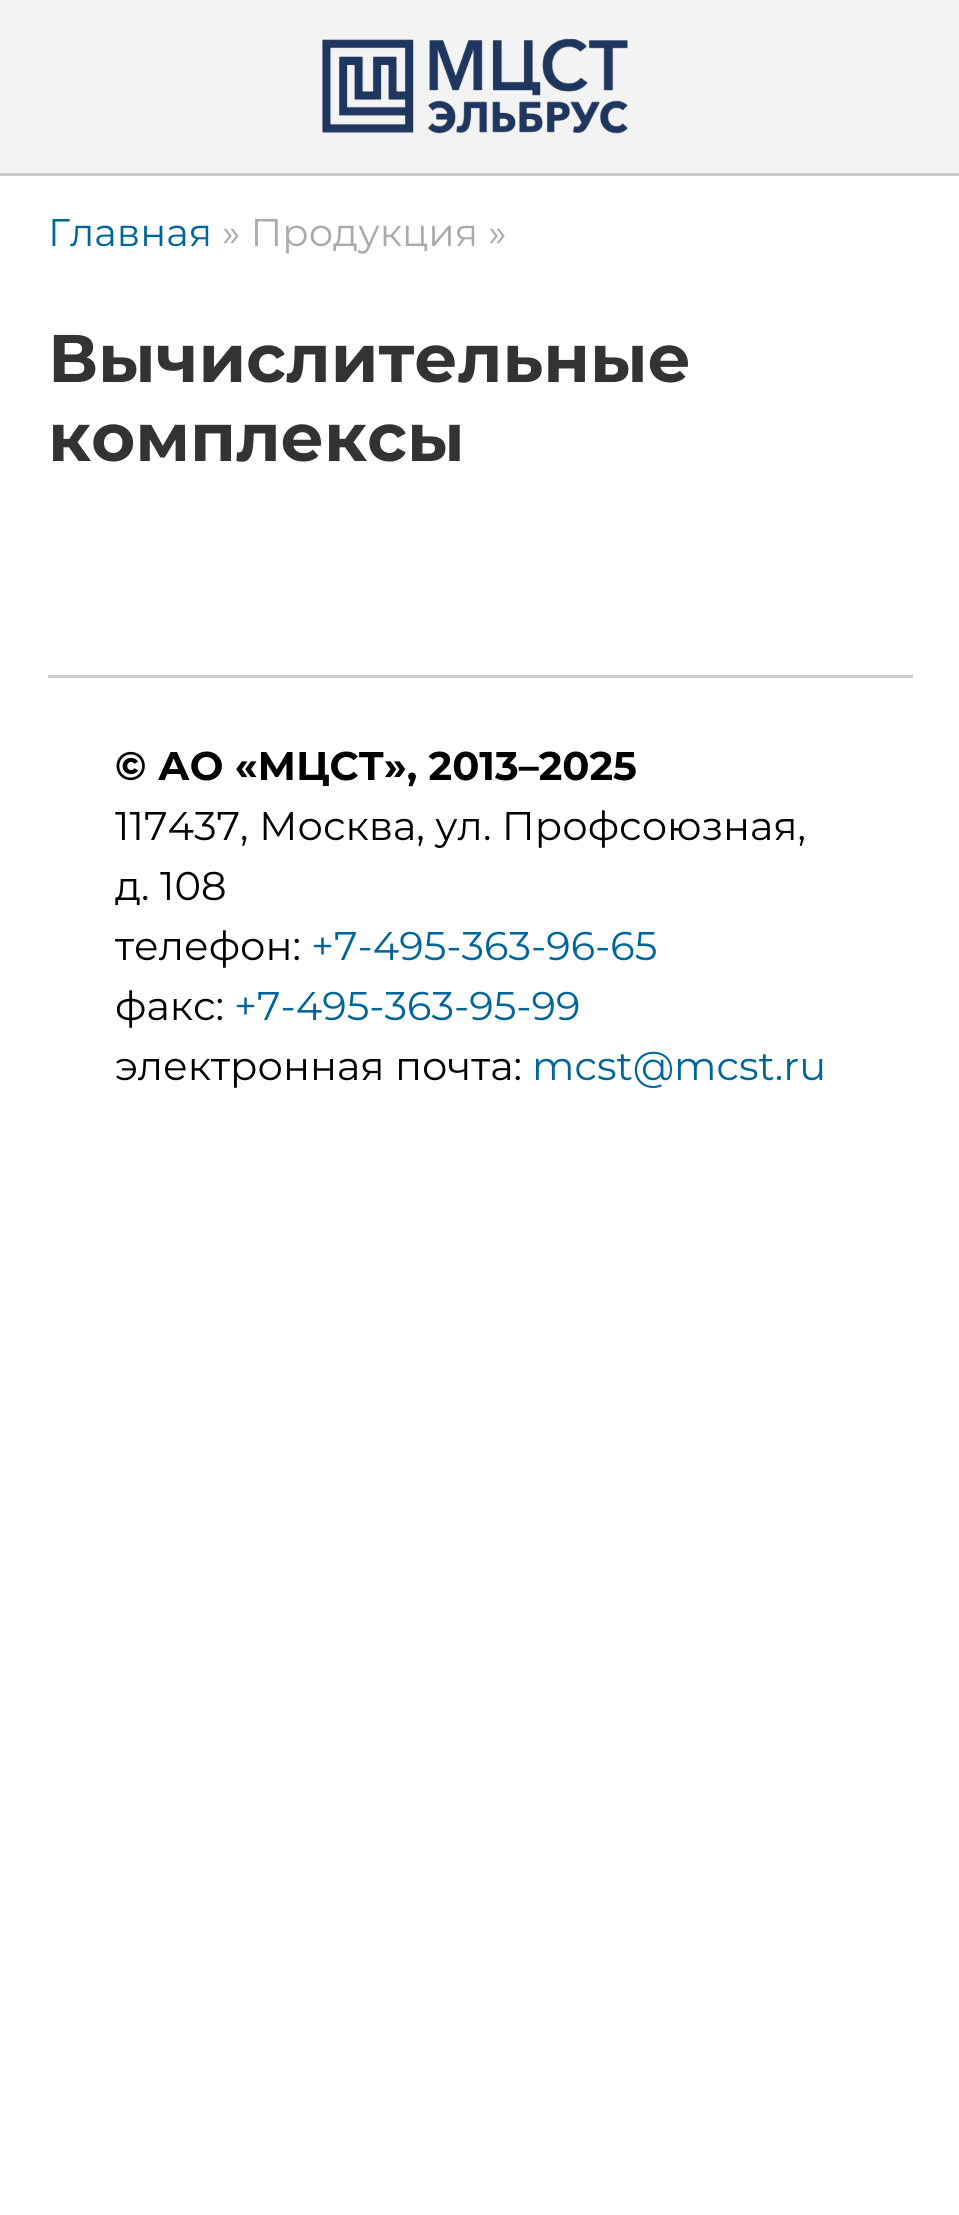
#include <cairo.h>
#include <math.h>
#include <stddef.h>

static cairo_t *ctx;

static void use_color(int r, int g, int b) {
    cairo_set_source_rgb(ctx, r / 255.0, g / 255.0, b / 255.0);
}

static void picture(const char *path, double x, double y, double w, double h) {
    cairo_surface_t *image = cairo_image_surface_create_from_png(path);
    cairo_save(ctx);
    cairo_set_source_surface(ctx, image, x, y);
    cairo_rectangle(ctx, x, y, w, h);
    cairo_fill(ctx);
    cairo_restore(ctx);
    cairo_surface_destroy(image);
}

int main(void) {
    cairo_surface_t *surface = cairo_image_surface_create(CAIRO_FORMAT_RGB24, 959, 2215);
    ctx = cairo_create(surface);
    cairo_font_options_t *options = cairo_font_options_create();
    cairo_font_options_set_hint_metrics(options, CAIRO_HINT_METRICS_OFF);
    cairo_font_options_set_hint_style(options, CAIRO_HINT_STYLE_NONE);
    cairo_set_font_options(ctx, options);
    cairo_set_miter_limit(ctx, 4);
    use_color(255, 255, 255);
    cairo_paint(ctx);
    use_color(243, 243, 243);
    cairo_rectangle(ctx, 0, 0, 959, 173);
    cairo_fill(ctx);
    use_color(204, 204, 204);
    cairo_rectangle(ctx, 0, 173, 959, 3);
    cairo_fill(ctx);
    picture("img1.png", 322, 38, 306, 96);
    cairo_select_font_face(ctx, "Montserrat", CAIRO_FONT_SLANT_NORMAL, CAIRO_FONT_WEIGHT_NORMAL);
    cairo_set_font_size(ctx, 38.5);
    use_color(0, 102, 153);
    cairo_move_to(ctx, 48, 246);
    cairo_show_text(ctx, "Главная");
    use_color(170, 170, 170);
    cairo_move_to(ctx, 222, 246);
    cairo_show_text(ctx, "» Продукция »");
    cairo_select_font_face(ctx, "Montserrat", CAIRO_FONT_SLANT_NORMAL, CAIRO_FONT_WEIGHT_BOLD);
    cairo_set_font_size(ctx, 67.25);
    use_color(51, 51, 51);
    cairo_move_to(ctx, 48, 382);
    cairo_show_text(ctx, "Вычислительные");
    cairo_move_to(ctx, 48, 461);
    cairo_show_text(ctx, "комплексы");
    use_color(204, 204, 204);
    cairo_rectangle(ctx, 48, 675, 865, 3);
    cairo_fill(ctx);
    cairo_set_font_size(ctx, 40);
    use_color(0, 0, 0);
    cairo_move_to(ctx, 115, 780);
    cairo_show_text(ctx, "© АО «МЦСТ», 2013–2025");
    cairo_select_font_face(ctx, "Montserrat", CAIRO_FONT_SLANT_NORMAL, CAIRO_FONT_WEIGHT_NORMAL);
    cairo_move_to(ctx, 115, 840);
    cairo_show_text(ctx, "117437, Москва, ул. Профсоюзная,");
    cairo_move_to(ctx, 115, 900);
    cairo_show_text(ctx, "д. 108");
    cairo_move_to(ctx, 115, 960);
    cairo_show_text(ctx, "телефон:");
    use_color(0, 102, 153);
    cairo_move_to(ctx, 311, 960);
    cairo_show_text(ctx, "+7-495-363-96-65");
    use_color(0, 0, 0);
    cairo_move_to(ctx, 115, 1020);
    cairo_show_text(ctx, "факс:");
    use_color(0, 102, 153);
    cairo_move_to(ctx, 234, 1020);
    cairo_show_text(ctx, "+7-495-363-95-99");
    use_color(0, 0, 0);
    cairo_move_to(ctx, 115, 1080);
    cairo_show_text(ctx, "электронная почта:");
    use_color(0, 102, 153);
    cairo_move_to(ctx, 532, 1080);
    cairo_show_text(ctx, "mcst@mcst.ru");
    cairo_surface_write_to_png(surface, "result.png");
    cairo_font_options_destroy(options);
    cairo_destroy(ctx);
    cairo_surface_destroy(surface);
    return 0;
}
